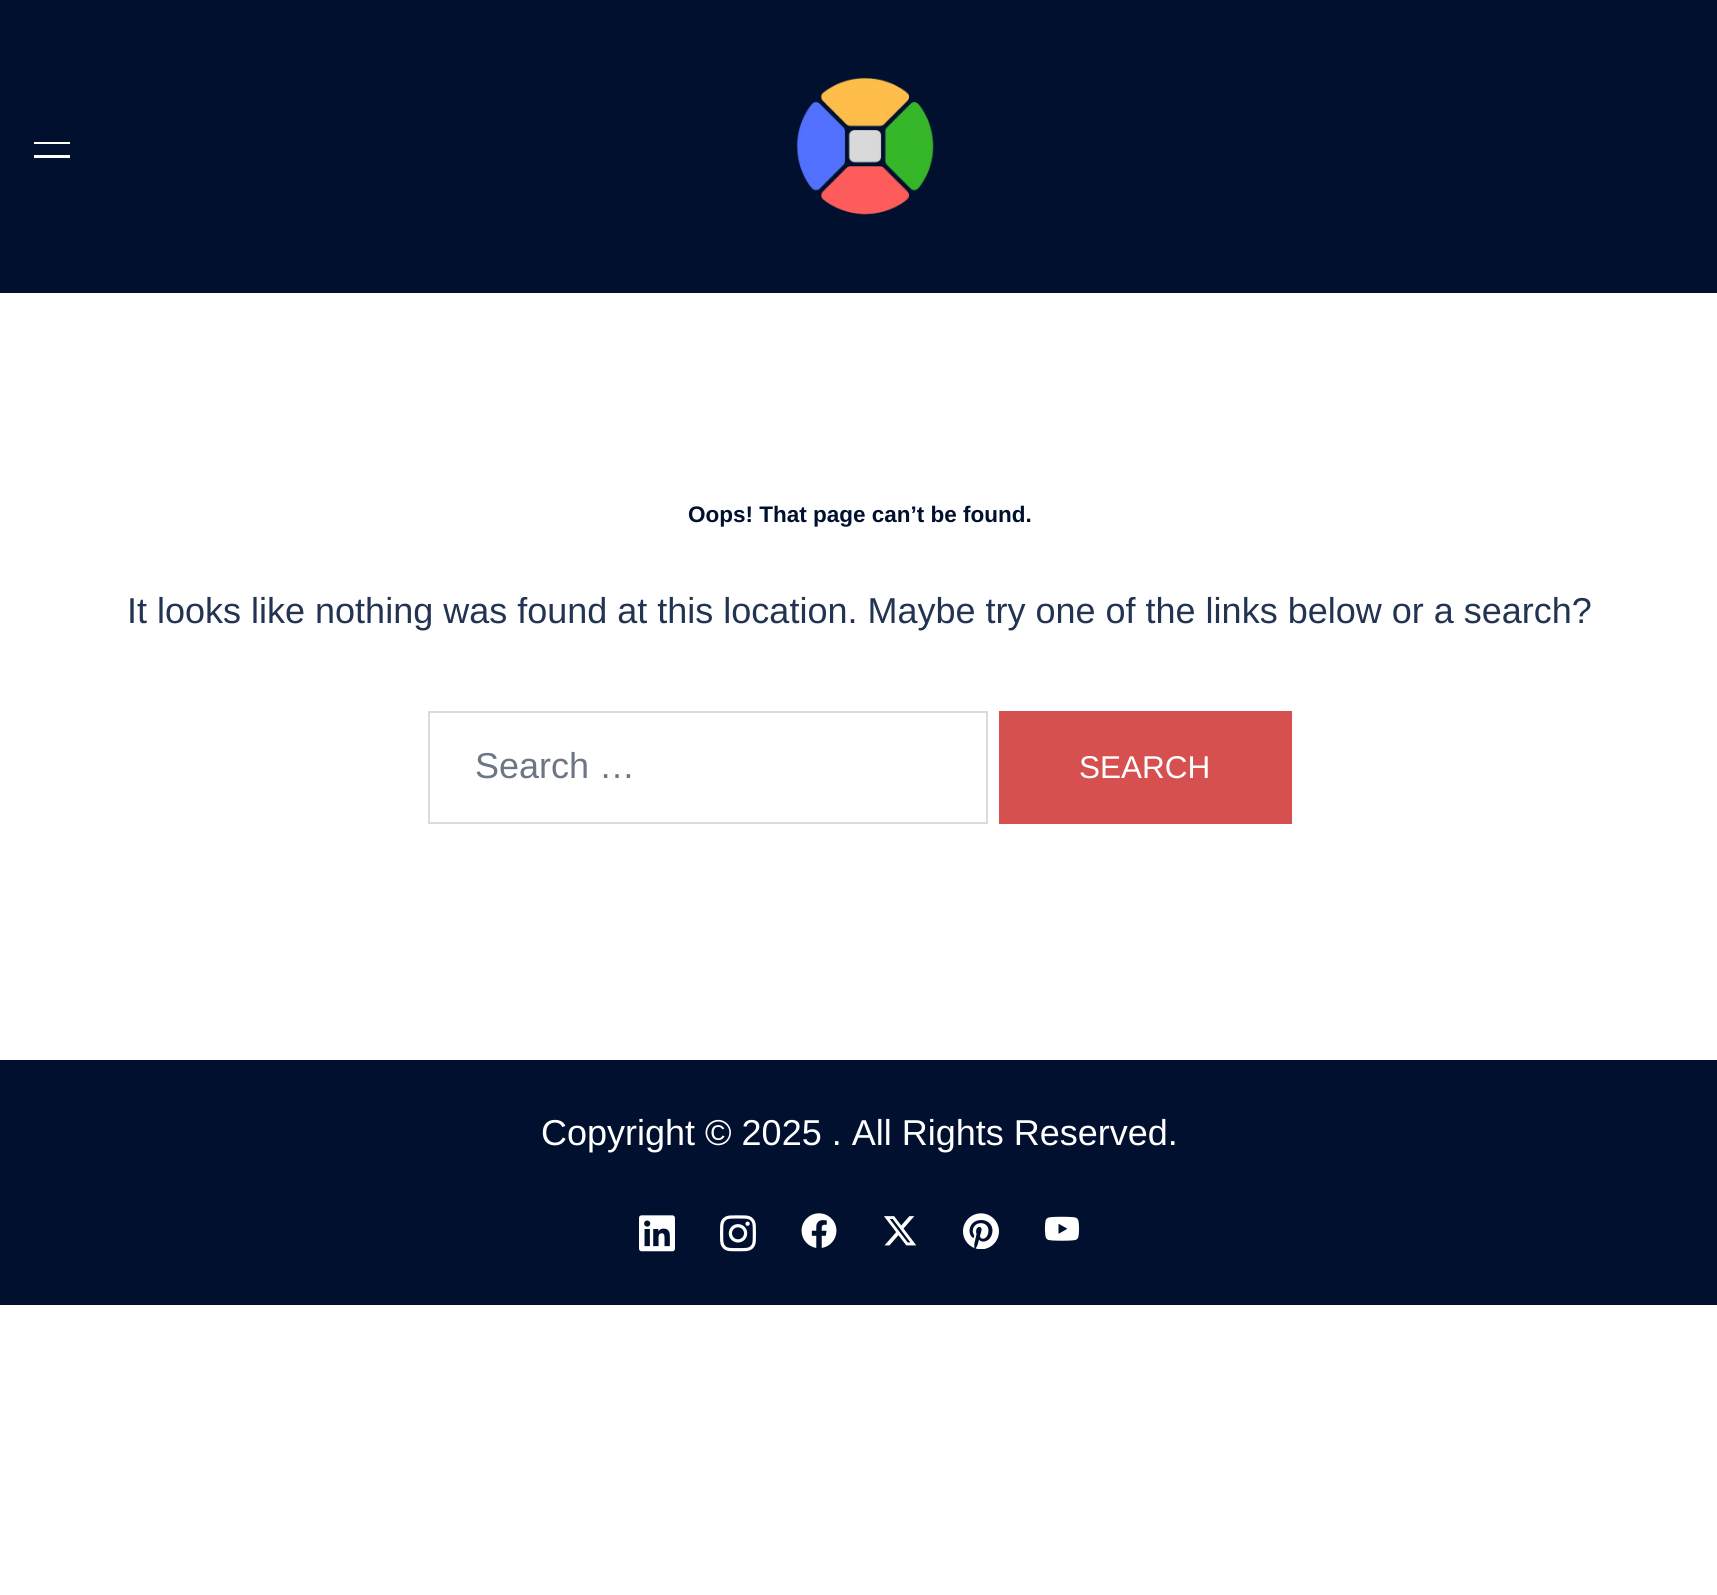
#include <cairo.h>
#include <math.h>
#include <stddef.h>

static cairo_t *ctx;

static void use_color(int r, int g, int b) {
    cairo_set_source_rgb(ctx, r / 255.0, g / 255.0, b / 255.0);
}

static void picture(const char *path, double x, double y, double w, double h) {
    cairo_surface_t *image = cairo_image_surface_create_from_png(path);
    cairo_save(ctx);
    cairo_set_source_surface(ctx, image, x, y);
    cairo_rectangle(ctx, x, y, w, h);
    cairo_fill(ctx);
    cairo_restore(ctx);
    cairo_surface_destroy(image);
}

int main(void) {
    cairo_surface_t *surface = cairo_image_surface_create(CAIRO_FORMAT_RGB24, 1717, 1595);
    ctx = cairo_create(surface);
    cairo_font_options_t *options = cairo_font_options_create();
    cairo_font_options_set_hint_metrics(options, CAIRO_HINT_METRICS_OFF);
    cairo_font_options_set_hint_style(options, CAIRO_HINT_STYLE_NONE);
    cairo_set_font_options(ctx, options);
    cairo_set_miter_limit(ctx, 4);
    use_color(255, 255, 255);
    cairo_paint(ctx);
    use_color(0, 16, 46);
    cairo_rectangle(ctx, 0, 0, 1717, 293);
    cairo_fill(ctx);
    use_color(255, 255, 255);
    cairo_rectangle(ctx, 34, 142, 36, 2);
    cairo_fill(ctx);
    cairo_rectangle(ctx, 34, 155, 36, 3);
    cairo_fill(ctx);
    picture("img1.png", 796, 77, 138, 138);
    cairo_select_font_face(ctx, "Liberation Sans", CAIRO_FONT_SLANT_NORMAL, CAIRO_FONT_WEIGHT_BOLD);
    cairo_set_font_size(ctx, 22.5);
    use_color(0, 16, 46);
    cairo_move_to(ctx, 688, 522);
    cairo_show_text(ctx, "Oops! That page can’t be found.");
    cairo_select_font_face(ctx, "Liberation Sans", CAIRO_FONT_SLANT_NORMAL, CAIRO_FONT_WEIGHT_NORMAL);
    cairo_set_font_size(ctx, 36);
    use_color(35, 52, 82);
    cairo_move_to(ctx, 127, 623);
    cairo_show_text(ctx, "It looks like nothing was found at this location. Maybe try one of the links below or a search?");
    cairo_rectangle(ctx, 429, 712, 558, 111);
    use_color(219, 219, 219);
    cairo_stroke(ctx);
    use_color(109, 118, 133);
    cairo_move_to(ctx, 475, 778);
    cairo_show_text(ctx, "Search …");
    use_color(214, 80, 80);
    cairo_rectangle(ctx, 999, 711, 293, 113);
    cairo_fill(ctx);
    cairo_set_font_size(ctx, 31.5);
    use_color(255, 255, 255);
    cairo_move_to(ctx, 1079, 778);
    cairo_show_text(ctx, "SEARCH");
    use_color(0, 16, 46);
    cairo_rectangle(ctx, 0, 1060, 1717, 245);
    cairo_fill(ctx);
    cairo_set_font_size(ctx, 36);
    use_color(255, 255, 255);
    cairo_move_to(ctx, 541, 1145);
    cairo_show_text(ctx, "Copyright © 2025 . All Rights Reserved.");
    picture("img2.png", 639, 1215, 36, 37);
    picture("img3.png", 720, 1215, 36, 37);
    picture("img4.png", 801, 1213, 36, 35);
    picture("img5.png", 884, 1216, 33, 30);
    picture("img6.png", 963, 1213, 36, 36);
    picture("img7.png", 1044, 1216, 36, 25);
    cairo_surface_write_to_png(surface, "result.png");
    cairo_font_options_destroy(options);
    cairo_destroy(ctx);
    cairo_surface_destroy(surface);
    return 0;
}
